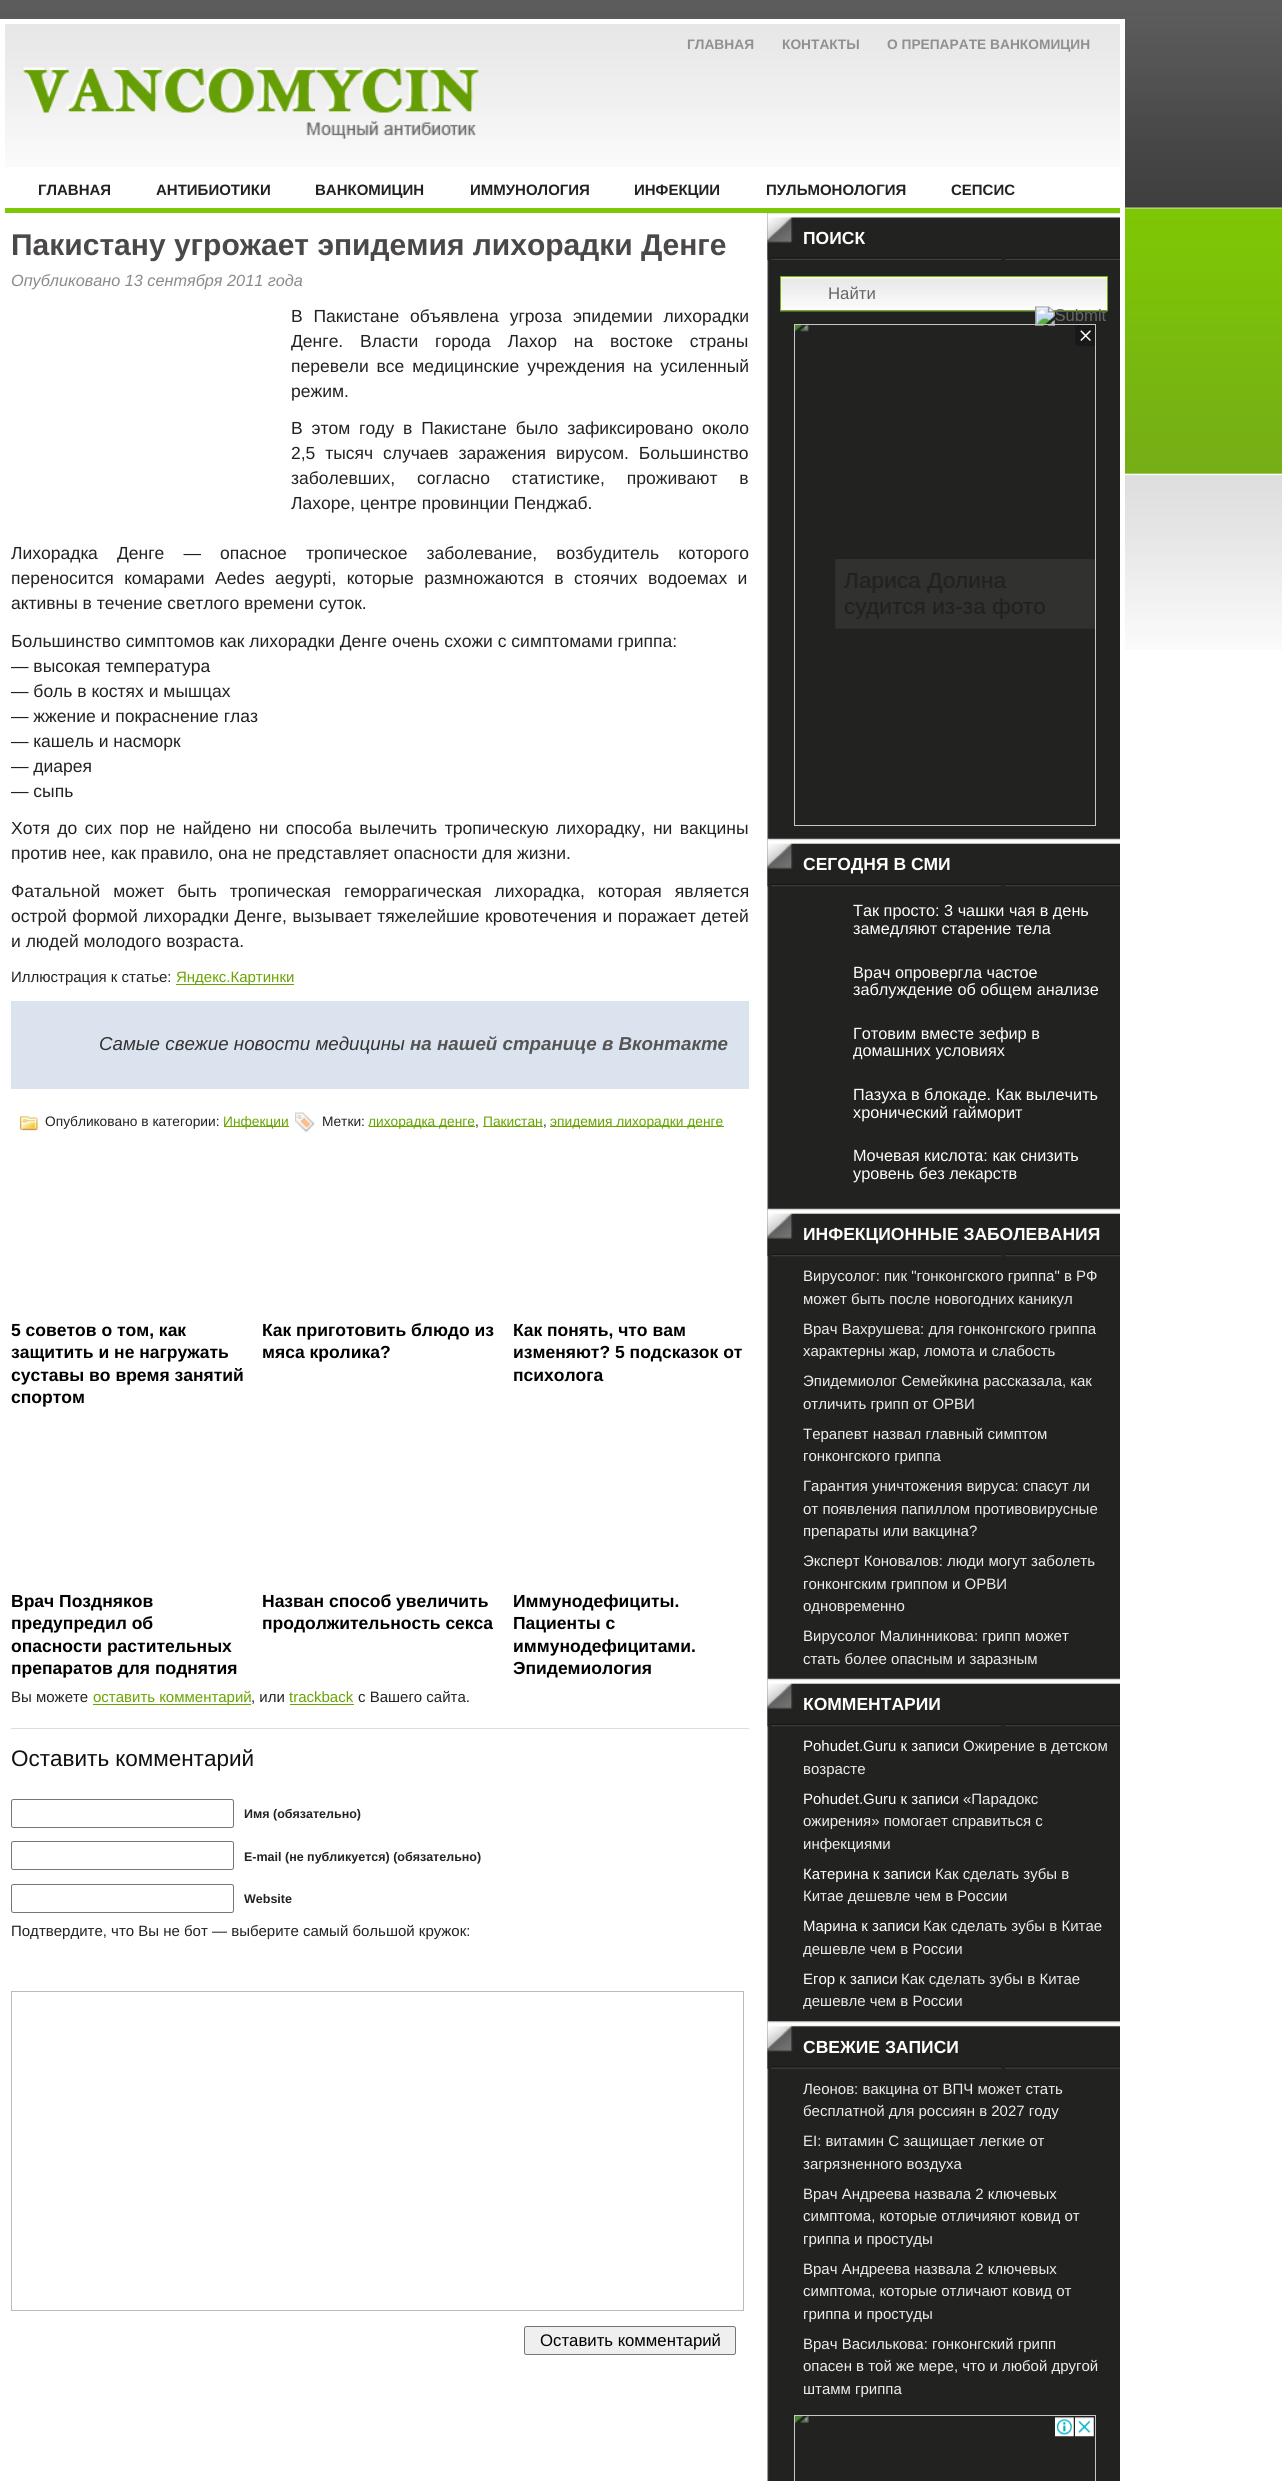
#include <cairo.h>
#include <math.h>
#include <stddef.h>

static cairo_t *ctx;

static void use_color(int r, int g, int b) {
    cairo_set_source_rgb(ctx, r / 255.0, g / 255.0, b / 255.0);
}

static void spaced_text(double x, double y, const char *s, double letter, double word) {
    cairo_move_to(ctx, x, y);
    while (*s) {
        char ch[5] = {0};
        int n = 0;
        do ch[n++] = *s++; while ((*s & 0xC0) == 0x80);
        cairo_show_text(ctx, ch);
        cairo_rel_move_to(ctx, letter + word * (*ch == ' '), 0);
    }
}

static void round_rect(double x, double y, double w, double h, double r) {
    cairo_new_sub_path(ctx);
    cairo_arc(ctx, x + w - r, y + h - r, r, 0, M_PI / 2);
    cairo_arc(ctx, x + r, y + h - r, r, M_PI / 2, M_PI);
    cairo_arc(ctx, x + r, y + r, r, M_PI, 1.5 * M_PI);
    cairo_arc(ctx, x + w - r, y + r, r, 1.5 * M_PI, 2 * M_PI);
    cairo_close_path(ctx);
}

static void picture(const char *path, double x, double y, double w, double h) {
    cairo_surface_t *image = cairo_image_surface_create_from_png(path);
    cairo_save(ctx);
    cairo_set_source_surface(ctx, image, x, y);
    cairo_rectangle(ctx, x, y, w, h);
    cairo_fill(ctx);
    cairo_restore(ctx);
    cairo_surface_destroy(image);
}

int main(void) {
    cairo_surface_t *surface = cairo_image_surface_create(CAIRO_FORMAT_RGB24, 1282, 2481);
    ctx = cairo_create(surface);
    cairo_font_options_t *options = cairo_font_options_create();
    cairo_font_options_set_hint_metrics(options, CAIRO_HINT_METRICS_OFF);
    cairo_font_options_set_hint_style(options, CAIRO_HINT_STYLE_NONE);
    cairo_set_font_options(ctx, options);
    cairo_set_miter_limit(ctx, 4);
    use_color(255, 255, 255);
    cairo_paint(ctx);
    picture("img1.png", 0, 0, 1282, 650);
    use_color(255, 255, 255);
    cairo_rectangle(ctx, 5, 167, 1115, 483);
    cairo_fill(ctx);
    picture("img2.png", 5, 24, 1115, 143);
    cairo_rectangle(ctx, 2.5, 21.5, 1120, 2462);
    cairo_set_line_width(ctx, 5);
    cairo_stroke(ctx);
    cairo_select_font_face(ctx, "Liberation Sans", CAIRO_FONT_SLANT_NORMAL, CAIRO_FONT_WEIGHT_BOLD);
    cairo_set_font_size(ctx, 13.75);
    use_color(145, 144, 144);
    cairo_move_to(ctx, 687, 49);
    cairo_show_text(ctx, "ГЛАВНАЯ");
    cairo_move_to(ctx, 782, 49);
    cairo_show_text(ctx, "КОНТАКТЫ");
    cairo_move_to(ctx, 887, 49);
    cairo_show_text(ctx, "О ПРЕПАРАТЕ ВАНКОМИЦИН");
    picture("img3.png", 23, 67, 456, 72);
    use_color(126, 199, 4);
    cairo_rectangle(ctx, 5, 208, 1115, 5);
    cairo_fill(ctx);
    cairo_set_font_size(ctx, 15);
    use_color(34, 34, 34);
    cairo_move_to(ctx, 38, 195);
    cairo_show_text(ctx, "ГЛАВНАЯ");
    cairo_move_to(ctx, 156, 195);
    cairo_show_text(ctx, "АНТИБИОТИКИ");
    cairo_move_to(ctx, 315, 195);
    cairo_show_text(ctx, "ВАНКОМИЦИН");
    cairo_move_to(ctx, 470, 195);
    cairo_show_text(ctx, "ИММУНОЛОГИЯ");
    cairo_move_to(ctx, 634, 195);
    cairo_show_text(ctx, "ИНФЕКЦИИ");
    cairo_move_to(ctx, 766, 195);
    cairo_show_text(ctx, "ПУЛЬМОНОЛОГИЯ");
    cairo_move_to(ctx, 951, 195);
    cairo_show_text(ctx, "СЕПСИС");
    picture("img4.png", 767, 213, 353, 2268);
    use_color(221, 221, 221);
    cairo_rectangle(ctx, 11, 1728, 738, 1);
    cairo_fill(ctx);
    cairo_set_font_size(ctx, 30);
    use_color(74, 72, 72);
    cairo_move_to(ctx, 11, 255);
    cairo_show_text(ctx, "Пакистану угрожает эпидемия лихорадки Денге");
    cairo_select_font_face(ctx, "Liberation Sans", CAIRO_FONT_SLANT_ITALIC, CAIRO_FONT_WEIGHT_NORMAL);
    cairo_set_font_size(ctx, 16.25);
    use_color(138, 138, 138);
    cairo_move_to(ctx, 11, 286);
    cairo_show_text(ctx, "Опубликовано 13 сентября 2011 года");
    cairo_select_font_face(ctx, "Liberation Sans", CAIRO_FONT_SLANT_NORMAL, CAIRO_FONT_WEIGHT_NORMAL);
    cairo_set_font_size(ctx, 17.5);
    use_color(34, 34, 34);
    spaced_text(291, 322, "В Пакистане объявлена угроза эпидемии лихорадки", 0, 6);
    spaced_text(291, 347, "Денге. Власти города Лахор на востоке страны", 0, 12);
    spaced_text(291, 372, "перевели все медицинские учреждения на усиленный", 0, 3);
    cairo_move_to(ctx, 291, 397);
    cairo_show_text(ctx, "режим.");
    spaced_text(291, 434, "В этом году в Пакистане было зафиксировано около", 0, 4);
    spaced_text(291, 459, "2,5 тысяч случаев заражения вирусом. Большинство", 0, 5);
    spaced_text(291, 484, "заболевших, согласно статистике, проживают в", 0, 17);
    cairo_move_to(ctx, 291, 509);
    cairo_show_text(ctx, "Лахоре, центре провинции Пенджаб.");
    spaced_text(11, 559, "Лихорадка Денге — опасное тропическое заболевание, возбудитель которого", 0, 14.25);
    spaced_text(11, 584, "переносится комарами Aedes aegypti, которые размножаются в стоячих водоемах и", 0, 5.5);
    cairo_move_to(ctx, 11, 609);
    cairo_show_text(ctx, "активны в течение светлого времени суток.");
    cairo_move_to(ctx, 11, 647);
    cairo_show_text(ctx, "Большинство симптомов как лихорадки Денге очень схожи с симптомами гриппа:");
    cairo_move_to(ctx, 11, 672);
    cairo_show_text(ctx, "— высокая температура");
    cairo_move_to(ctx, 11, 697);
    cairo_show_text(ctx, "— боль в костях и мышцах");
    cairo_move_to(ctx, 11, 722);
    cairo_show_text(ctx, "— жжение и покраснение глаз");
    cairo_move_to(ctx, 11, 747);
    cairo_show_text(ctx, "— кашель и насморк");
    cairo_move_to(ctx, 11, 772);
    cairo_show_text(ctx, "— диарея");
    cairo_move_to(ctx, 11, 797);
    cairo_show_text(ctx, "— сыпь");
    spaced_text(11, 834, "Хотя до сих пор не найдено ни способа вылечить тропическую лихорадку, ни вакцины", 0, 2.6);
    cairo_move_to(ctx, 11, 859);
    cairo_show_text(ctx, "против нее, как правило, она не представляет опасности для жизни.");
    spaced_text(11, 897, "Фатальной может быть тропическая геморрагическая лихорадка, которая является", 0, 8);
    spaced_text(11, 922, "острой формой лихорадки Денге, вызывает тяжелейшие кровотечения и поражает детей", 0, 0.75);
    cairo_move_to(ctx, 11, 947);
    cairo_show_text(ctx, "и людей молодого возраста.");
    cairo_set_font_size(ctx, 15);
    cairo_move_to(ctx, 11, 982);
    cairo_show_text(ctx, "Иллюстрация к статье:");
    use_color(104, 165, 1);
    cairo_rectangle(ctx, 176, 984, 118, 1);
    cairo_fill(ctx);
    cairo_move_to(ctx, 176, 982);
    cairo_show_text(ctx, "Яндекс.Картинки");
    use_color(219, 228, 238);
    cairo_rectangle(ctx, 11, 1001, 738, 88);
    cairo_fill(ctx);
    cairo_select_font_face(ctx, "Liberation Sans", CAIRO_FONT_SLANT_ITALIC, CAIRO_FONT_WEIGHT_NORMAL);
    cairo_set_font_size(ctx, 18.75);
    use_color(51, 51, 51);
    cairo_move_to(ctx, 99, 1050);
    cairo_show_text(ctx, "Самые свежие новости медицины");
    cairo_select_font_face(ctx, "Liberation Sans", CAIRO_FONT_SLANT_ITALIC, CAIRO_FONT_WEIGHT_BOLD);
    use_color(85, 85, 85);
    cairo_move_to(ctx, 410, 1050);
    cairo_show_text(ctx, "на нашей странице в Вконтакте");
    picture("img5.png", 19, 1116, 19, 15);
    cairo_select_font_face(ctx, "Liberation Sans", CAIRO_FONT_SLANT_NORMAL, CAIRO_FONT_WEIGHT_NORMAL);
    cairo_set_font_size(ctx, 13.75);
    use_color(34, 34, 34);
    cairo_move_to(ctx, 45, 1126);
    cairo_show_text(ctx, "Опубликовано в категории:");
    use_color(104, 165, 1);
    cairo_rectangle(ctx, 224, 1126, 65, 1);
    cairo_fill(ctx);
    cairo_move_to(ctx, 223, 1126);
    cairo_show_text(ctx, "Инфекции");
    picture("img6.png", 295, 1112, 20, 21);
    use_color(34, 34, 34);
    cairo_move_to(ctx, 322, 1126);
    cairo_show_text(ctx, "Метки:");
    use_color(104, 165, 1);
    cairo_rectangle(ctx, 369, 1126, 106, 1);
    cairo_fill(ctx);
    cairo_move_to(ctx, 368, 1126);
    cairo_show_text(ctx, "лихорадка денге");
    use_color(34, 34, 34);
    cairo_move_to(ctx, 475, 1126);
    cairo_show_text(ctx, ",");
    use_color(104, 165, 1);
    cairo_rectangle(ctx, 483, 1126, 60, 1);
    cairo_fill(ctx);
    cairo_move_to(ctx, 483, 1126);
    cairo_show_text(ctx, "Пакистан");
    use_color(34, 34, 34);
    cairo_move_to(ctx, 543, 1126);
    cairo_show_text(ctx, ",");
    use_color(104, 165, 1);
    cairo_rectangle(ctx, 550, 1126, 174, 1);
    cairo_fill(ctx);
    cairo_move_to(ctx, 550, 1126);
    cairo_show_text(ctx, "эпидемия лихорадки денге");
    cairo_select_font_face(ctx, "Liberation Sans", CAIRO_FONT_SLANT_NORMAL, CAIRO_FONT_WEIGHT_BOLD);
    cairo_set_font_size(ctx, 17.5);
    use_color(0, 0, 0);
    cairo_move_to(ctx, 11, 1336);
    cairo_show_text(ctx, "5 советов о том, как");
    cairo_move_to(ctx, 11, 1358);
    cairo_show_text(ctx, "защитить и не нагружать");
    cairo_move_to(ctx, 11, 1381);
    cairo_show_text(ctx, "суставы во время занятий");
    cairo_move_to(ctx, 11, 1403);
    cairo_show_text(ctx, "спортом");
    cairo_move_to(ctx, 262, 1336);
    cairo_show_text(ctx, "Как приготовить блюдо из");
    cairo_move_to(ctx, 262, 1358);
    cairo_show_text(ctx, "мяса кролика?");
    cairo_move_to(ctx, 513, 1336);
    cairo_show_text(ctx, "Как понять, что вам");
    cairo_move_to(ctx, 513, 1358);
    cairo_show_text(ctx, "изменяют? 5 подсказок от");
    cairo_move_to(ctx, 513, 1381);
    cairo_show_text(ctx, "психолога");
    cairo_move_to(ctx, 11, 1607);
    cairo_show_text(ctx, "Врач Поздняков");
    cairo_move_to(ctx, 11, 1629);
    cairo_show_text(ctx, "предупредил об");
    cairo_move_to(ctx, 11, 1652);
    cairo_show_text(ctx, "опасности растительных");
    cairo_move_to(ctx, 11, 1674);
    cairo_show_text(ctx, "препаратов для поднятия");
    cairo_move_to(ctx, 262, 1607);
    cairo_show_text(ctx, "Назван способ увеличить");
    cairo_move_to(ctx, 262, 1629);
    cairo_show_text(ctx, "продолжительность секса");
    cairo_move_to(ctx, 513, 1607);
    cairo_show_text(ctx, "Иммунодефициты.");
    cairo_move_to(ctx, 513, 1629);
    cairo_show_text(ctx, "Пациенты с");
    cairo_move_to(ctx, 513, 1652);
    cairo_show_text(ctx, "иммунодефицитами.");
    cairo_move_to(ctx, 513, 1674);
    cairo_show_text(ctx, "Эпидемиология");
    cairo_select_font_face(ctx, "Liberation Sans", CAIRO_FONT_SLANT_NORMAL, CAIRO_FONT_WEIGHT_NORMAL);
    cairo_set_font_size(ctx, 15);
    use_color(34, 34, 34);
    cairo_move_to(ctx, 11, 1702);
    cairo_show_text(ctx, "Вы можете");
    use_color(104, 165, 1);
    cairo_rectangle(ctx, 93, 1704, 158, 1);
    cairo_fill(ctx);
    cairo_move_to(ctx, 93, 1702);
    cairo_show_text(ctx, "оставить комментарий");
    use_color(34, 34, 34);
    cairo_move_to(ctx, 251, 1702);
    cairo_show_text(ctx, ", или");
    use_color(104, 165, 1);
    cairo_move_to(ctx, 289, 1702);
    cairo_show_text(ctx, "trackback");
    cairo_rectangle(ctx, 290, 1704, 64, 1);
    cairo_fill(ctx);
    use_color(34, 34, 34);
    cairo_move_to(ctx, 358, 1702);
    cairo_show_text(ctx, "с Вашего сайта.");
    cairo_set_font_size(ctx, 22.5);
    use_color(17, 17, 17);
    cairo_move_to(ctx, 11, 1766);
    cairo_show_text(ctx, "Оставить комментарий");
    round_rect(11.5, 1799.5, 222, 28, 2);
    use_color(118, 118, 118);
    cairo_set_line_width(ctx, 1);
    cairo_stroke(ctx);
    cairo_select_font_face(ctx, "Liberation Sans", CAIRO_FONT_SLANT_NORMAL, CAIRO_FONT_WEIGHT_BOLD);
    cairo_set_font_size(ctx, 12.5);
    use_color(34, 34, 34);
    cairo_move_to(ctx, 244, 1818);
    cairo_show_text(ctx, "Имя (обязательно)");
    round_rect(11.5, 1841.5, 222, 28, 2);
    use_color(118, 118, 118);
    cairo_stroke(ctx);
    use_color(34, 34, 34);
    cairo_move_to(ctx, 244, 1861);
    cairo_show_text(ctx, "E-mail (не публикуется) (обязательно)");
    round_rect(11.5, 1884.5, 222, 28, 2);
    use_color(118, 118, 118);
    cairo_stroke(ctx);
    use_color(34, 34, 34);
    cairo_move_to(ctx, 244, 1903);
    cairo_show_text(ctx, "Website");
    cairo_select_font_face(ctx, "Liberation Sans", CAIRO_FONT_SLANT_NORMAL, CAIRO_FONT_WEIGHT_NORMAL);
    cairo_set_font_size(ctx, 15);
    cairo_move_to(ctx, 11, 1936);
    cairo_show_text(ctx, "Подтвердите, что Вы не бот — выберите самый большой кружок:");
    cairo_rectangle(ctx, 11.5, 1991.5, 732, 319);
    use_color(187, 187, 187);
    cairo_stroke(ctx);
    use_color(239, 239, 239);
    round_rect(524.5, 2326.5, 211, 28, 2);
    cairo_fill_preserve(ctx);
    use_color(118, 118, 118);
    cairo_stroke(ctx);
    cairo_set_font_size(ctx, 16.75);
    use_color(0, 0, 0);
    cairo_move_to(ctx, 540, 2346);
    cairo_show_text(ctx, "Оставить комментарий");
    picture("img7.png", 767, 213, 353, 47);
    cairo_select_font_face(ctx, "Liberation Sans", CAIRO_FONT_SLANT_NORMAL, CAIRO_FONT_WEIGHT_BOLD);
    cairo_set_font_size(ctx, 17.5);
    use_color(255, 255, 255);
    cairo_move_to(ctx, 803, 244);
    cairo_show_text(ctx, "ПОИСК");
    cairo_rectangle(ctx, 781, 277, 326, 1);
    cairo_fill(ctx);
    picture("img8.png", 780, 277, 328, 35);
    cairo_rectangle(ctx, 780.5, 276.5, 327, 34);
    use_color(118, 175, 22);
    cairo_stroke(ctx);
    cairo_select_font_face(ctx, "Liberation Sans", CAIRO_FONT_SLANT_NORMAL, CAIRO_FONT_WEIGHT_NORMAL);
    cairo_set_font_size(ctx, 16.75);
    use_color(102, 102, 102);
    cairo_move_to(ctx, 828, 299);
    cairo_show_text(ctx, "Найти");
    picture("img9.png", 1035, 306, 71, 21);
    cairo_rectangle(ctx, 794.5, 324.5, 301, 501);
    use_color(199, 199, 199);
    cairo_stroke(ctx);
    picture("img10.png", 795, 325, 300, 304);
    picture("img11.png", 767, 838, 353, 49);
    cairo_select_font_face(ctx, "Liberation Sans", CAIRO_FONT_SLANT_NORMAL, CAIRO_FONT_WEIGHT_BOLD);
    cairo_set_font_size(ctx, 17.5);
    use_color(255, 255, 255);
    cairo_move_to(ctx, 803, 870);
    cairo_show_text(ctx, "СЕГОДНЯ В СМИ");
    cairo_select_font_face(ctx, "Liberation Sans", CAIRO_FONT_SLANT_NORMAL, CAIRO_FONT_WEIGHT_NORMAL);
    cairo_set_font_size(ctx, 16.25);
    cairo_move_to(ctx, 853, 916);
    cairo_show_text(ctx, "Так просто: 3 чашки чая в день");
    cairo_move_to(ctx, 853, 934);
    cairo_show_text(ctx, "замедляют старение тела");
    cairo_move_to(ctx, 853, 978);
    cairo_show_text(ctx, "Врач опровергла частое");
    cairo_move_to(ctx, 853, 995);
    cairo_show_text(ctx, "заблуждение об общем анализе");
    cairo_move_to(ctx, 853, 1039);
    cairo_show_text(ctx, "Готовим вместе зефир в");
    cairo_save(ctx);
    cairo_rectangle(ctx, 853, 1025, 255, 36);
    cairo_clip(ctx);
    cairo_move_to(ctx, 853, 1056);
    cairo_show_text(ctx, "домашних условиях");
    cairo_restore(ctx);
    cairo_move_to(ctx, 853, 1100);
    cairo_show_text(ctx, "Пазуха в блокаде. Как вылечить");
    cairo_move_to(ctx, 853, 1118);
    cairo_show_text(ctx, "хронический гайморит");
    cairo_move_to(ctx, 853, 1161);
    cairo_show_text(ctx, "Мочевая кислота: как снизить");
    cairo_move_to(ctx, 853, 1179);
    cairo_show_text(ctx, "уровень без лекарств");
    picture("img11.png", 767, 1208, 353, 49);
    cairo_select_font_face(ctx, "Liberation Sans", CAIRO_FONT_SLANT_NORMAL, CAIRO_FONT_WEIGHT_BOLD);
    cairo_set_font_size(ctx, 17.5);
    cairo_move_to(ctx, 803, 1240);
    cairo_show_text(ctx, "ИНФЕКЦИОННЫЕ ЗАБОЛЕВАНИЯ");
    cairo_select_font_face(ctx, "Liberation Sans", CAIRO_FONT_SLANT_NORMAL, CAIRO_FONT_WEIGHT_NORMAL);
    cairo_set_font_size(ctx, 15);
    use_color(238, 238, 238);
    cairo_move_to(ctx, 803, 1281);
    cairo_show_text(ctx, "Вирусолог: пик \"гонконгского гриппа\" в РФ");
    cairo_move_to(ctx, 803, 1304);
    cairo_show_text(ctx, "может быть после новогодних каникул");
    cairo_move_to(ctx, 803, 1334);
    cairo_show_text(ctx, "Врач Вахрушева: для гонконгского гриппа");
    cairo_move_to(ctx, 803, 1356);
    cairo_show_text(ctx, "характерны жар, ломота и слабость");
    cairo_move_to(ctx, 803, 1386);
    cairo_show_text(ctx, "Эпидемиолог Семейкина рассказала, как");
    cairo_move_to(ctx, 803, 1409);
    cairo_show_text(ctx, "отличить грипп от ОРВИ");
    cairo_move_to(ctx, 803, 1439);
    cairo_show_text(ctx, "Терапевт назвал главный симптом");
    cairo_move_to(ctx, 803, 1461);
    cairo_show_text(ctx, "гонконгского гриппа");
    cairo_move_to(ctx, 803, 1491);
    cairo_show_text(ctx, "Гарантия уничтожения вируса: спасут ли");
    cairo_move_to(ctx, 803, 1514);
    cairo_show_text(ctx, "от появления папиллом противовирусные");
    cairo_move_to(ctx, 803, 1536);
    cairo_show_text(ctx, "препараты или вакцина?");
    cairo_move_to(ctx, 803, 1566);
    cairo_show_text(ctx, "Эксперт Коновалов: люди могут заболеть");
    cairo_move_to(ctx, 803, 1589);
    cairo_show_text(ctx, "гонконгским гриппом и ОРВИ");
    cairo_move_to(ctx, 803, 1611);
    cairo_show_text(ctx, "одновременно");
    cairo_move_to(ctx, 803, 1641);
    cairo_show_text(ctx, "Вирусолог Малинникова: грипп может");
    cairo_move_to(ctx, 803, 1664);
    cairo_show_text(ctx, "стать более опасным и заразным");
    picture("img11.png", 767, 1678, 353, 49);
    cairo_select_font_face(ctx, "Liberation Sans", CAIRO_FONT_SLANT_NORMAL, CAIRO_FONT_WEIGHT_BOLD);
    cairo_set_font_size(ctx, 17.5);
    use_color(255, 255, 255);
    cairo_move_to(ctx, 803, 1710);
    cairo_show_text(ctx, "КОММЕНТАРИИ");
    cairo_select_font_face(ctx, "Liberation Sans", CAIRO_FONT_SLANT_NORMAL, CAIRO_FONT_WEIGHT_NORMAL);
    cairo_set_font_size(ctx, 15);
    cairo_move_to(ctx, 803, 1751);
    cairo_show_text(ctx, "Pohudet.Guru к записи");
    use_color(238, 238, 238);
    cairo_move_to(ctx, 963, 1751);
    cairo_show_text(ctx, "Ожирение в детском");
    cairo_move_to(ctx, 803, 1774);
    cairo_show_text(ctx, "возрасте");
    use_color(255, 255, 255);
    cairo_move_to(ctx, 803, 1804);
    cairo_show_text(ctx, "Pohudet.Guru к записи");
    use_color(238, 238, 238);
    cairo_move_to(ctx, 963, 1804);
    cairo_show_text(ctx, "«Парадокс");
    cairo_move_to(ctx, 803, 1826);
    cairo_show_text(ctx, "ожирения» помогает справиться с");
    cairo_move_to(ctx, 803, 1849);
    cairo_show_text(ctx, "инфекциями");
    use_color(255, 255, 255);
    cairo_move_to(ctx, 803, 1879);
    cairo_show_text(ctx, "Катерина к записи");
    use_color(238, 238, 238);
    cairo_move_to(ctx, 935, 1879);
    cairo_show_text(ctx, "Как сделать зубы в");
    cairo_move_to(ctx, 803, 1901);
    cairo_show_text(ctx, "Китае дешевле чем в России");
    use_color(255, 255, 255);
    cairo_move_to(ctx, 803, 1931);
    cairo_show_text(ctx, "Марина к записи");
    use_color(238, 238, 238);
    cairo_move_to(ctx, 923, 1931);
    cairo_show_text(ctx, "Как сделать зубы в Китае");
    cairo_move_to(ctx, 803, 1954);
    cairo_show_text(ctx, "дешевле чем в России");
    use_color(255, 255, 255);
    cairo_move_to(ctx, 803, 1984);
    cairo_show_text(ctx, "Егор к записи");
    use_color(238, 238, 238);
    cairo_move_to(ctx, 901, 1984);
    cairo_show_text(ctx, "Как сделать зубы в Китае");
    cairo_move_to(ctx, 803, 2006);
    cairo_show_text(ctx, "дешевле чем в России");
    picture("img12.png", 767, 2021, 353, 48);
    cairo_select_font_face(ctx, "Liberation Sans", CAIRO_FONT_SLANT_NORMAL, CAIRO_FONT_WEIGHT_BOLD);
    cairo_set_font_size(ctx, 17.5);
    use_color(255, 255, 255);
    cairo_move_to(ctx, 803, 2053);
    cairo_show_text(ctx, "СВЕЖИЕ ЗАПИСИ");
    cairo_select_font_face(ctx, "Liberation Sans", CAIRO_FONT_SLANT_NORMAL, CAIRO_FONT_WEIGHT_NORMAL);
    cairo_set_font_size(ctx, 15);
    use_color(238, 238, 238);
    cairo_move_to(ctx, 803, 2094);
    cairo_show_text(ctx, "Леонов: вакцина от ВПЧ может стать");
    cairo_move_to(ctx, 803, 2116);
    cairo_show_text(ctx, "бесплатной для россиян в 2027 году");
    cairo_move_to(ctx, 803, 2146);
    cairo_show_text(ctx, "EI: витамин C защищает легкие от");
    cairo_move_to(ctx, 803, 2169);
    cairo_show_text(ctx, "загрязненного воздуха");
    cairo_move_to(ctx, 803, 2199);
    cairo_show_text(ctx, "Врач Андреева назвала 2 ключевых");
    cairo_move_to(ctx, 803, 2221);
    cairo_show_text(ctx, "симптома, которые отличияют ковид от");
    cairo_move_to(ctx, 803, 2244);
    cairo_show_text(ctx, "гриппа и простуды");
    cairo_move_to(ctx, 803, 2274);
    cairo_show_text(ctx, "Врач Андреева назвала 2 ключевых");
    cairo_move_to(ctx, 803, 2296);
    cairo_show_text(ctx, "симптома, которые отличают ковид от");
    cairo_move_to(ctx, 803, 2319);
    cairo_show_text(ctx, "гриппа и простуды");
    cairo_move_to(ctx, 803, 2349);
    cairo_show_text(ctx, "Врач Василькова: гонконгский грипп");
    cairo_move_to(ctx, 803, 2371);
    cairo_show_text(ctx, "опасен в той же мере, что и любой другой");
    cairo_move_to(ctx, 803, 2394);
    cairo_show_text(ctx, "штамм гриппа");
    cairo_rectangle(ctx, 794.5, 2415.5, 301, 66);
    use_color(199, 199, 199);
    cairo_stroke(ctx);
    picture("img13.png", 795, 2416, 299, 21);
    cairo_surface_write_to_png(surface, "result.png");
    cairo_font_options_destroy(options);
    cairo_destroy(ctx);
    cairo_surface_destroy(surface);
    return 0;
}
